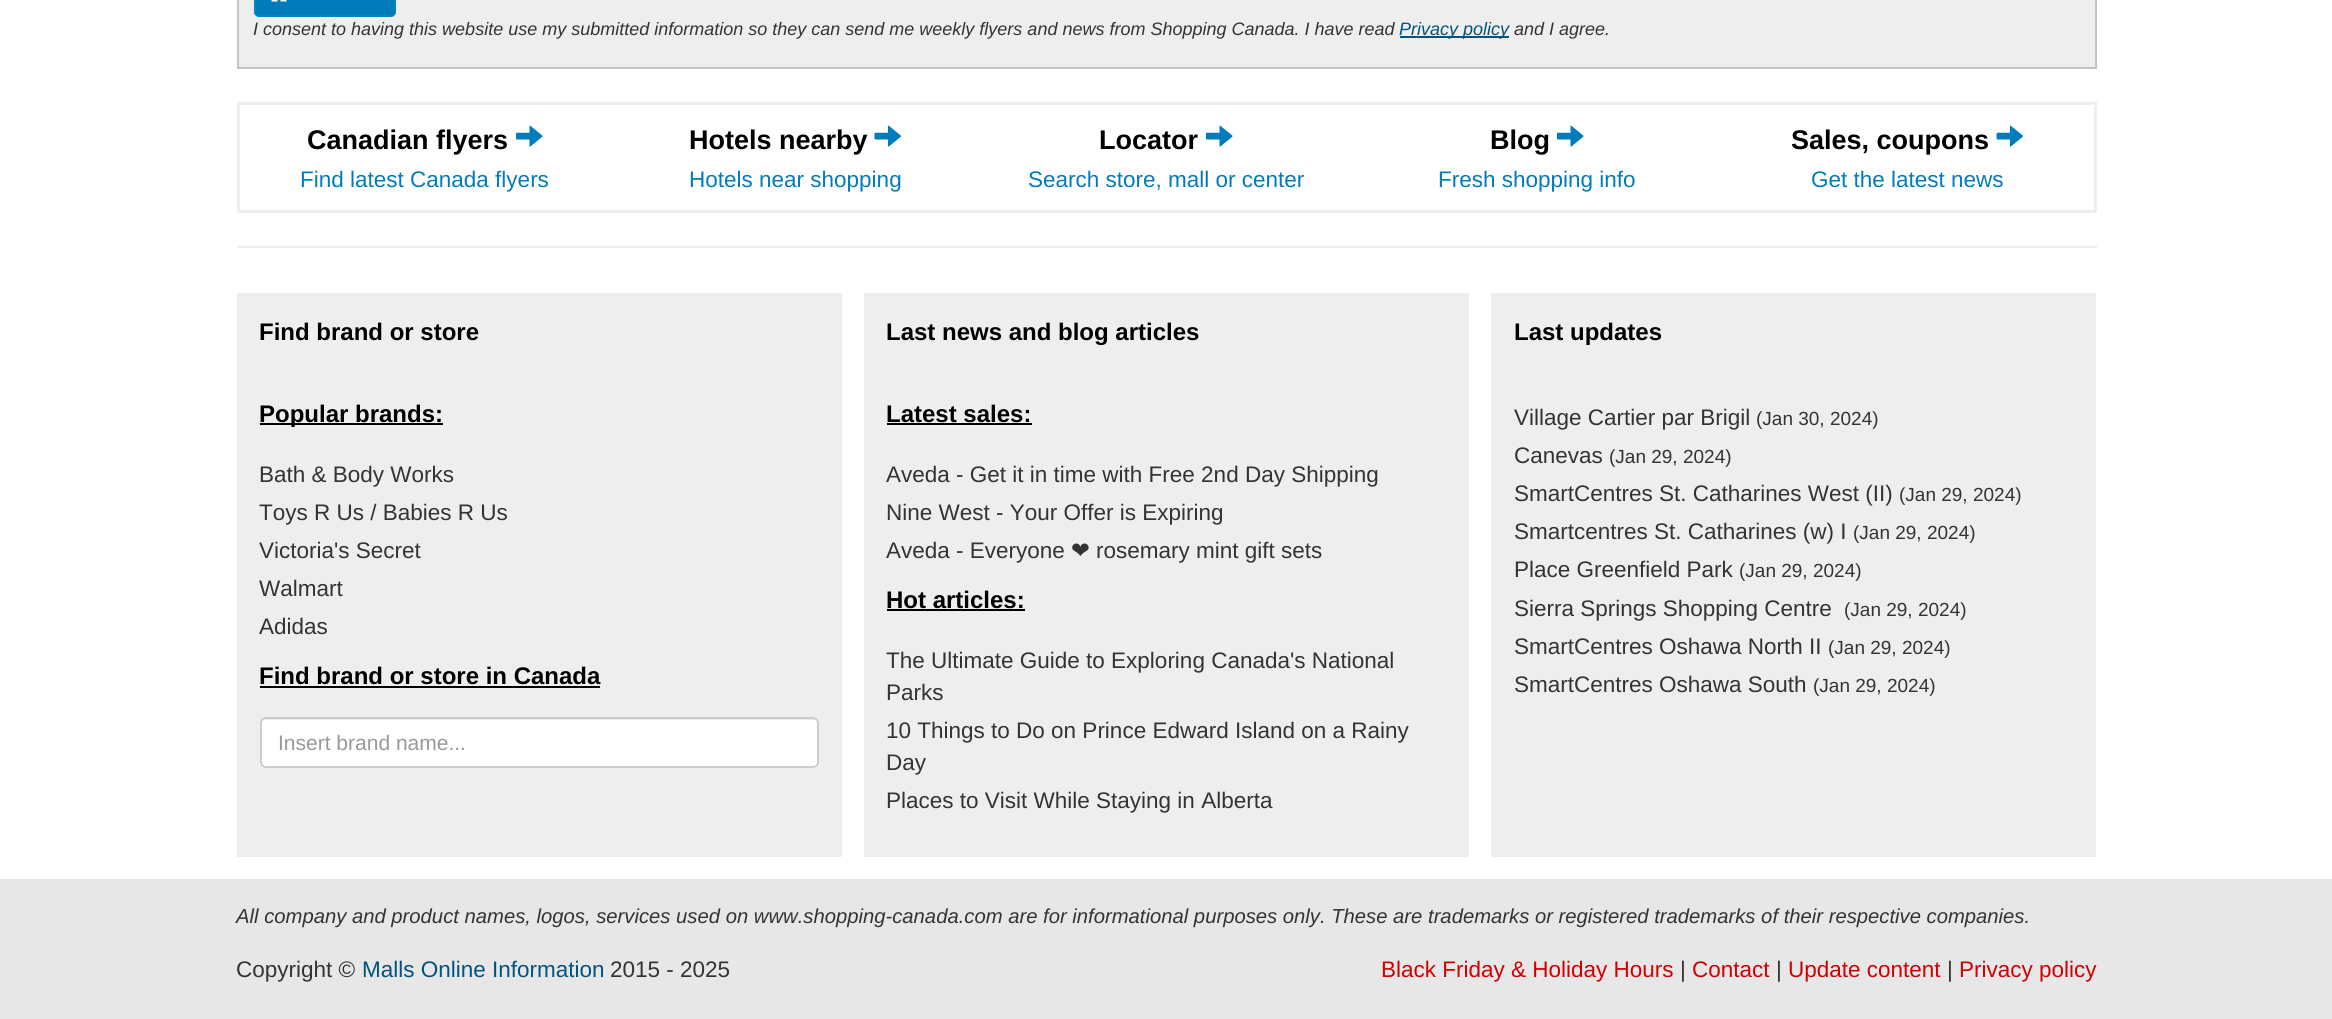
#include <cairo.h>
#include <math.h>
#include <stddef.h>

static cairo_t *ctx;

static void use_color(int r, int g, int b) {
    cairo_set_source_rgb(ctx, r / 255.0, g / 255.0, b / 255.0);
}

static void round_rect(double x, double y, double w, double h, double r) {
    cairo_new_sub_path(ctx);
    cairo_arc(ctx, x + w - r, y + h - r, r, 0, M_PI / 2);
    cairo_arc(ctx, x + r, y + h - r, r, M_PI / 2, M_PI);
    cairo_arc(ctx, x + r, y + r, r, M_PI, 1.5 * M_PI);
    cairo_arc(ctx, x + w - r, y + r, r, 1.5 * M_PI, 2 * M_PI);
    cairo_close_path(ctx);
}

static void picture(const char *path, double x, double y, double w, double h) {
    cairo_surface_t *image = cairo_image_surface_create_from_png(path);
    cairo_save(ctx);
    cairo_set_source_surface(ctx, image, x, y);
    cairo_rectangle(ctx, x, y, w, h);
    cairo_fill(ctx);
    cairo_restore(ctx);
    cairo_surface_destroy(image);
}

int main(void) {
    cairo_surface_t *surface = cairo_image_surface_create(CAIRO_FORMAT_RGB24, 2332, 1019);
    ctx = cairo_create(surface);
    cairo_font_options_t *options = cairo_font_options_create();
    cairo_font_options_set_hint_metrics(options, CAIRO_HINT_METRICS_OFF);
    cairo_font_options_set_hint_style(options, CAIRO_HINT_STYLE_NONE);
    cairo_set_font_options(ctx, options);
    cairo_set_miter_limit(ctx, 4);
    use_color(255, 255, 255);
    cairo_paint(ctx);
    use_color(238, 238, 238);
    cairo_rectangle(ctx, 238, -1, 1858, 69);
    cairo_fill_preserve(ctx);
    use_color(195, 195, 195);
    cairo_stroke(ctx);
    use_color(0, 124, 189);
    round_rect(255, -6, 140, 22, 4);
    cairo_fill_preserve(ctx);
    use_color(0, 135, 194);
    cairo_stroke(ctx);
    picture("img1.png", 271, 0, 16, 2);
    cairo_select_font_face(ctx, "Liberation Sans", CAIRO_FONT_SLANT_ITALIC, CAIRO_FONT_WEIGHT_NORMAL);
    cairo_set_font_size(ctx, 18);
    use_color(51, 51, 51);
    cairo_move_to(ctx, 253, 35);
    cairo_show_text(ctx, "I consent to having this website use my submitted information so they can send me weekly flyers and news from Shopping Canada. I have read");
    use_color(1, 83, 127);
    cairo_rectangle(ctx, 1400, 36, 109, 2);
    cairo_fill(ctx);
    cairo_move_to(ctx, 1399, 35);
    cairo_show_text(ctx, "Privacy policy");
    use_color(51, 51, 51);
    cairo_move_to(ctx, 1514, 35);
    cairo_show_text(ctx, "and I agree.");
    cairo_rectangle(ctx, 238.5, 103.5, 1857, 108);
    use_color(238, 238, 238);
    cairo_set_line_width(ctx, 3);
    cairo_stroke(ctx);
    cairo_select_font_face(ctx, "Liberation Sans", CAIRO_FONT_SLANT_NORMAL, CAIRO_FONT_WEIGHT_BOLD);
    cairo_set_font_size(ctx, 27);
    use_color(0, 0, 0);
    cairo_move_to(ctx, 307, 149);
    cairo_show_text(ctx, "Canadian flyers");
    picture("img2.png", 516, 125, 27, 22);
    cairo_select_font_face(ctx, "Liberation Sans", CAIRO_FONT_SLANT_NORMAL, CAIRO_FONT_WEIGHT_NORMAL);
    cairo_set_font_size(ctx, 22.5);
    use_color(0, 124, 189);
    cairo_move_to(ctx, 300, 187);
    cairo_show_text(ctx, "Find latest Canada flyers");
    cairo_select_font_face(ctx, "Liberation Sans", CAIRO_FONT_SLANT_NORMAL, CAIRO_FONT_WEIGHT_BOLD);
    cairo_set_font_size(ctx, 27);
    use_color(0, 0, 0);
    cairo_move_to(ctx, 689, 149);
    cairo_show_text(ctx, "Hotels nearby");
    picture("img3.png", 874, 125, 27, 22);
    cairo_select_font_face(ctx, "Liberation Sans", CAIRO_FONT_SLANT_NORMAL, CAIRO_FONT_WEIGHT_NORMAL);
    cairo_set_font_size(ctx, 22.5);
    use_color(0, 124, 189);
    cairo_move_to(ctx, 689, 187);
    cairo_show_text(ctx, "Hotels near shopping");
    cairo_select_font_face(ctx, "Liberation Sans", CAIRO_FONT_SLANT_NORMAL, CAIRO_FONT_WEIGHT_BOLD);
    cairo_set_font_size(ctx, 27);
    use_color(0, 0, 0);
    cairo_move_to(ctx, 1099, 149);
    cairo_show_text(ctx, "Locator");
    picture("img2.png", 1206, 125, 27, 22);
    cairo_select_font_face(ctx, "Liberation Sans", CAIRO_FONT_SLANT_NORMAL, CAIRO_FONT_WEIGHT_NORMAL);
    cairo_set_font_size(ctx, 22.5);
    use_color(0, 124, 189);
    cairo_move_to(ctx, 1028, 187);
    cairo_show_text(ctx, "Search store, mall or center");
    cairo_select_font_face(ctx, "Liberation Sans", CAIRO_FONT_SLANT_NORMAL, CAIRO_FONT_WEIGHT_BOLD);
    cairo_set_font_size(ctx, 27);
    use_color(0, 0, 0);
    cairo_move_to(ctx, 1490, 149);
    cairo_show_text(ctx, "Blog");
    picture("img2.png", 1557, 125, 27, 22);
    cairo_select_font_face(ctx, "Liberation Sans", CAIRO_FONT_SLANT_NORMAL, CAIRO_FONT_WEIGHT_NORMAL);
    cairo_set_font_size(ctx, 22.5);
    use_color(0, 124, 189);
    cairo_move_to(ctx, 1438, 187);
    cairo_show_text(ctx, "Fresh shopping info");
    cairo_select_font_face(ctx, "Liberation Sans", CAIRO_FONT_SLANT_NORMAL, CAIRO_FONT_WEIGHT_BOLD);
    cairo_set_font_size(ctx, 27);
    use_color(0, 0, 0);
    cairo_move_to(ctx, 1791, 149);
    cairo_show_text(ctx, "Sales, coupons");
    picture("img3.png", 1996, 125, 27, 22);
    cairo_select_font_face(ctx, "Liberation Sans", CAIRO_FONT_SLANT_NORMAL, CAIRO_FONT_WEIGHT_NORMAL);
    cairo_set_font_size(ctx, 22.5);
    use_color(0, 124, 189);
    cairo_move_to(ctx, 1811, 187);
    cairo_show_text(ctx, "Get the latest news");
    use_color(238, 238, 238);
    cairo_rectangle(ctx, 237, 246, 1860, 2);
    cairo_fill(ctx);
    cairo_rectangle(ctx, 237, 293, 605, 564);
    cairo_fill(ctx);
    cairo_select_font_face(ctx, "Liberation Sans", CAIRO_FONT_SLANT_NORMAL, CAIRO_FONT_WEIGHT_BOLD);
    cairo_set_font_size(ctx, 24);
    use_color(0, 0, 0);
    cairo_move_to(ctx, 259, 340);
    cairo_show_text(ctx, "Find brand or store");
    cairo_rectangle(ctx, 260, 423, 183, 2);
    cairo_fill(ctx);
    cairo_move_to(ctx, 259, 422);
    cairo_show_text(ctx, "Popular brands:");
    cairo_select_font_face(ctx, "Liberation Sans", CAIRO_FONT_SLANT_NORMAL, CAIRO_FONT_WEIGHT_NORMAL);
    cairo_set_font_size(ctx, 22.5);
    use_color(51, 51, 51);
    cairo_move_to(ctx, 259, 482);
    cairo_show_text(ctx, "Bath & Body Works");
    cairo_move_to(ctx, 259, 520);
    cairo_show_text(ctx, "Toys R Us / Babies R Us");
    cairo_move_to(ctx, 259, 558);
    cairo_show_text(ctx, "Victoria's Secret");
    cairo_move_to(ctx, 259, 596);
    cairo_show_text(ctx, "Walmart");
    cairo_move_to(ctx, 259, 634);
    cairo_show_text(ctx, "Adidas");
    cairo_select_font_face(ctx, "Liberation Sans", CAIRO_FONT_SLANT_NORMAL, CAIRO_FONT_WEIGHT_BOLD);
    cairo_set_font_size(ctx, 24);
    use_color(0, 0, 0);
    cairo_move_to(ctx, 259, 684);
    cairo_show_text(ctx, "Find brand or store in Canada");
    cairo_rectangle(ctx, 260, 686, 340, 2);
    cairo_fill(ctx);
    use_color(255, 255, 255);
    round_rect(260, 717, 559, 51, 6);
    cairo_fill(ctx);
    use_color(236, 236, 236);
    cairo_new_path(ctx);
    cairo_move_to(ctx, 266, 720);
    cairo_line_to(ctx, 813, 720);
    cairo_curve_to(ctx, 815, 720, 818, 722, 818, 724);
    cairo_curve_to(ctx, 818, 721, 816, 719, 813, 719);
    cairo_line_to(ctx, 266, 719);
    cairo_curve_to(ctx, 263, 719, 261, 721, 261, 724);
    cairo_curve_to(ctx, 261, 722, 263, 720, 266, 720);
    cairo_close_path(ctx);
    cairo_fill(ctx);
    round_rect(261, 718, 557, 49, 5);
    use_color(204, 204, 204);
    cairo_set_line_width(ctx, 2);
    cairo_stroke(ctx);
    cairo_select_font_face(ctx, "Liberation Sans", CAIRO_FONT_SLANT_NORMAL, CAIRO_FONT_WEIGHT_NORMAL);
    cairo_set_font_size(ctx, 21);
    use_color(153, 153, 153);
    cairo_move_to(ctx, 278, 750);
    cairo_show_text(ctx, "Insert brand name...");
    use_color(238, 238, 238);
    cairo_rectangle(ctx, 864, 293, 605, 564);
    cairo_fill(ctx);
    cairo_select_font_face(ctx, "Liberation Sans", CAIRO_FONT_SLANT_NORMAL, CAIRO_FONT_WEIGHT_BOLD);
    cairo_set_font_size(ctx, 24);
    use_color(0, 0, 0);
    cairo_move_to(ctx, 886, 340);
    cairo_show_text(ctx, "Last news and blog articles");
    cairo_move_to(ctx, 886, 422);
    cairo_show_text(ctx, "Latest sales:");
    cairo_rectangle(ctx, 887, 423, 145, 2);
    cairo_fill(ctx);
    cairo_select_font_face(ctx, "Liberation Sans", CAIRO_FONT_SLANT_NORMAL, CAIRO_FONT_WEIGHT_NORMAL);
    cairo_set_font_size(ctx, 22.5);
    use_color(51, 51, 51);
    cairo_move_to(ctx, 886, 482);
    cairo_show_text(ctx, "Aveda - Get it in time with Free 2nd Day Shipping");
    cairo_move_to(ctx, 886, 520);
    cairo_show_text(ctx, "Nine West - Your Offer is Expiring");
    cairo_move_to(ctx, 886, 558);
    cairo_show_text(ctx, "Aveda - Everyone");
    cairo_select_font_face(ctx, "DejaVu Sans", CAIRO_FONT_SLANT_NORMAL, CAIRO_FONT_WEIGHT_NORMAL);
    cairo_move_to(ctx, 1071, 558);
    cairo_show_text(ctx, "❤");
    cairo_select_font_face(ctx, "Liberation Sans", CAIRO_FONT_SLANT_NORMAL, CAIRO_FONT_WEIGHT_NORMAL);
    cairo_move_to(ctx, 1096, 558);
    cairo_show_text(ctx, "rosemary mint gift sets");
    cairo_select_font_face(ctx, "Liberation Sans", CAIRO_FONT_SLANT_NORMAL, CAIRO_FONT_WEIGHT_BOLD);
    cairo_set_font_size(ctx, 24);
    use_color(0, 0, 0);
    cairo_move_to(ctx, 886, 608);
    cairo_show_text(ctx, "Hot articles:");
    cairo_rectangle(ctx, 887, 609, 138, 2);
    cairo_fill(ctx);
    cairo_select_font_face(ctx, "Liberation Sans", CAIRO_FONT_SLANT_NORMAL, CAIRO_FONT_WEIGHT_NORMAL);
    cairo_set_font_size(ctx, 22.5);
    use_color(51, 51, 51);
    cairo_move_to(ctx, 886, 668);
    cairo_show_text(ctx, "The Ultimate Guide to Exploring Canada's National");
    cairo_move_to(ctx, 886, 700);
    cairo_show_text(ctx, "Parks");
    cairo_move_to(ctx, 886, 738);
    cairo_show_text(ctx, "10 Things to Do on Prince Edward Island on a Rainy");
    cairo_move_to(ctx, 886, 770);
    cairo_show_text(ctx, "Day");
    cairo_move_to(ctx, 886, 808);
    cairo_show_text(ctx, "Places to Visit While Staying in Alberta");
    use_color(238, 238, 238);
    cairo_rectangle(ctx, 1491, 293, 605, 564);
    cairo_fill(ctx);
    cairo_select_font_face(ctx, "Liberation Sans", CAIRO_FONT_SLANT_NORMAL, CAIRO_FONT_WEIGHT_BOLD);
    cairo_set_font_size(ctx, 24);
    use_color(0, 0, 0);
    cairo_move_to(ctx, 1514, 340);
    cairo_show_text(ctx, "Last updates");
    cairo_select_font_face(ctx, "Liberation Sans", CAIRO_FONT_SLANT_NORMAL, CAIRO_FONT_WEIGHT_NORMAL);
    cairo_set_font_size(ctx, 22.5);
    use_color(51, 51, 51);
    cairo_move_to(ctx, 1514, 425);
    cairo_show_text(ctx, "Village Cartier par Brigil");
    cairo_set_font_size(ctx, 19);
    cairo_move_to(ctx, 1756, 425);
    cairo_show_text(ctx, "(Jan 30, 2024)");
    cairo_set_font_size(ctx, 22.5);
    cairo_move_to(ctx, 1514, 463);
    cairo_show_text(ctx, "Canevas");
    cairo_set_font_size(ctx, 19);
    cairo_move_to(ctx, 1609, 463);
    cairo_show_text(ctx, "(Jan 29, 2024)");
    cairo_set_font_size(ctx, 22.5);
    cairo_move_to(ctx, 1514, 501);
    cairo_show_text(ctx, "SmartCentres St. Catharines West (II)");
    cairo_set_font_size(ctx, 19);
    cairo_move_to(ctx, 1899, 501);
    cairo_show_text(ctx, "(Jan 29, 2024)");
    cairo_set_font_size(ctx, 22.5);
    cairo_move_to(ctx, 1514, 539);
    cairo_show_text(ctx, "Smartcentres St. Catharines (w) I");
    cairo_set_font_size(ctx, 19);
    cairo_move_to(ctx, 1853, 539);
    cairo_show_text(ctx, "(Jan 29, 2024)");
    cairo_set_font_size(ctx, 22.5);
    cairo_move_to(ctx, 1514, 577);
    cairo_show_text(ctx, "Place Greenfield Park");
    cairo_set_font_size(ctx, 19);
    cairo_move_to(ctx, 1739, 577);
    cairo_show_text(ctx, "(Jan 29, 2024)");
    cairo_set_font_size(ctx, 22.5);
    cairo_move_to(ctx, 1514, 616);
    cairo_show_text(ctx, "Sierra Springs Shopping Centre");
    cairo_set_font_size(ctx, 19);
    cairo_move_to(ctx, 1844, 616);
    cairo_show_text(ctx, "(Jan 29, 2024)");
    cairo_set_font_size(ctx, 22.5);
    cairo_move_to(ctx, 1514, 654);
    cairo_show_text(ctx, "SmartCentres Oshawa North II");
    cairo_set_font_size(ctx, 19);
    cairo_move_to(ctx, 1828, 654);
    cairo_show_text(ctx, "(Jan 29, 2024)");
    cairo_set_font_size(ctx, 22.5);
    cairo_move_to(ctx, 1514, 692);
    cairo_show_text(ctx, "SmartCentres Oshawa South");
    cairo_set_font_size(ctx, 19);
    cairo_move_to(ctx, 1813, 692);
    cairo_show_text(ctx, "(Jan 29, 2024)");
    use_color(231, 231, 231);
    cairo_rectangle(ctx, 0, 879, 2332, 140);
    cairo_fill(ctx);
    cairo_select_font_face(ctx, "Liberation Sans", CAIRO_FONT_SLANT_ITALIC, CAIRO_FONT_WEIGHT_NORMAL);
    cairo_set_font_size(ctx, 20.25);
    use_color(51, 51, 51);
    cairo_move_to(ctx, 236, 923);
    cairo_show_text(ctx, "All company and product names, logos, services used on www.shopping-canada.com are for informational purposes only. These are trademarks or registered trademarks of their respective companies.");
    cairo_select_font_face(ctx, "Liberation Sans", CAIRO_FONT_SLANT_NORMAL, CAIRO_FONT_WEIGHT_NORMAL);
    cairo_set_font_size(ctx, 22.5);
    cairo_move_to(ctx, 236, 977);
    cairo_show_text(ctx, "Copyright ©");
    use_color(1, 83, 127);
    cairo_move_to(ctx, 362, 977);
    cairo_show_text(ctx, "Malls Online Information");
    use_color(51, 51, 51);
    cairo_move_to(ctx, 610, 977);
    cairo_show_text(ctx, "2015 - 2025");
    use_color(209, 0, 0);
    cairo_move_to(ctx, 1381, 977);
    cairo_show_text(ctx, "Black Friday & Holiday Hours");
    use_color(51, 51, 51);
    cairo_move_to(ctx, 1680, 977);
    cairo_show_text(ctx, "|");
    use_color(209, 0, 0);
    cairo_move_to(ctx, 1692, 977);
    cairo_show_text(ctx, "Contact");
    use_color(51, 51, 51);
    cairo_move_to(ctx, 1776, 977);
    cairo_show_text(ctx, "|");
    use_color(209, 0, 0);
    cairo_move_to(ctx, 1788, 977);
    cairo_show_text(ctx, "Update content");
    use_color(51, 51, 51);
    cairo_move_to(ctx, 1947, 977);
    cairo_show_text(ctx, "|");
    use_color(209, 0, 0);
    cairo_move_to(ctx, 1959, 977);
    cairo_show_text(ctx, "Privacy policy");
    cairo_surface_write_to_png(surface, "result.png");
    cairo_font_options_destroy(options);
    cairo_destroy(ctx);
    cairo_surface_destroy(surface);
    return 0;
}
